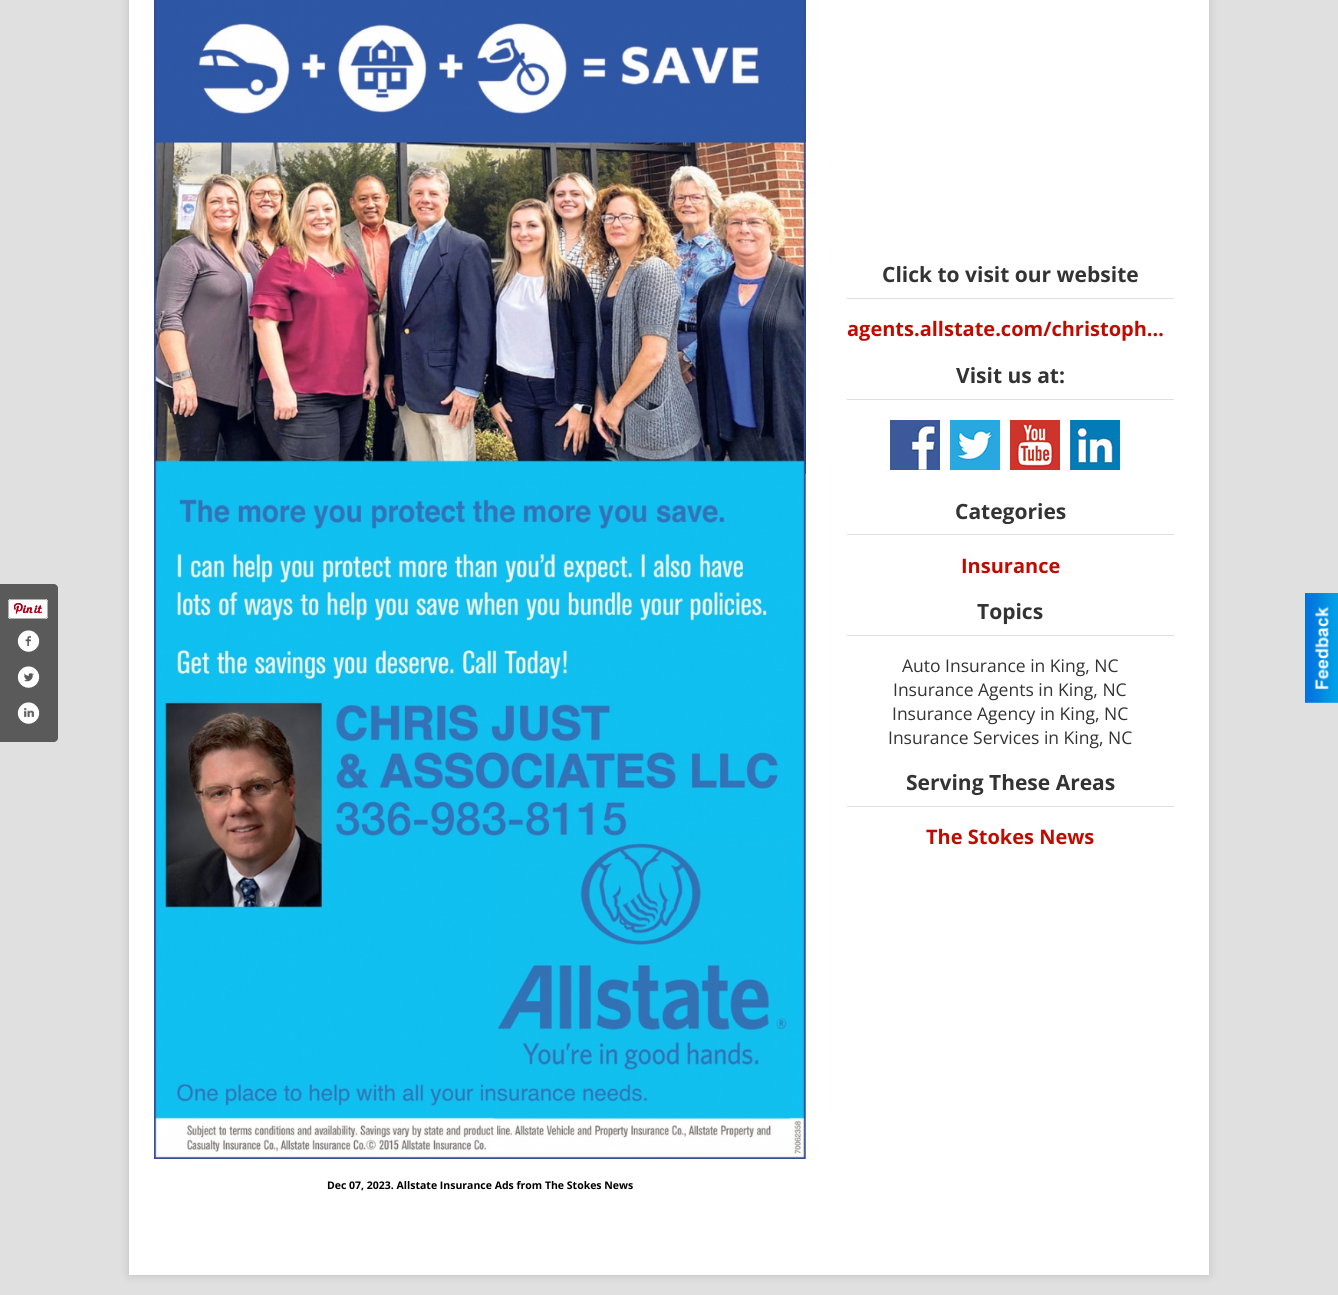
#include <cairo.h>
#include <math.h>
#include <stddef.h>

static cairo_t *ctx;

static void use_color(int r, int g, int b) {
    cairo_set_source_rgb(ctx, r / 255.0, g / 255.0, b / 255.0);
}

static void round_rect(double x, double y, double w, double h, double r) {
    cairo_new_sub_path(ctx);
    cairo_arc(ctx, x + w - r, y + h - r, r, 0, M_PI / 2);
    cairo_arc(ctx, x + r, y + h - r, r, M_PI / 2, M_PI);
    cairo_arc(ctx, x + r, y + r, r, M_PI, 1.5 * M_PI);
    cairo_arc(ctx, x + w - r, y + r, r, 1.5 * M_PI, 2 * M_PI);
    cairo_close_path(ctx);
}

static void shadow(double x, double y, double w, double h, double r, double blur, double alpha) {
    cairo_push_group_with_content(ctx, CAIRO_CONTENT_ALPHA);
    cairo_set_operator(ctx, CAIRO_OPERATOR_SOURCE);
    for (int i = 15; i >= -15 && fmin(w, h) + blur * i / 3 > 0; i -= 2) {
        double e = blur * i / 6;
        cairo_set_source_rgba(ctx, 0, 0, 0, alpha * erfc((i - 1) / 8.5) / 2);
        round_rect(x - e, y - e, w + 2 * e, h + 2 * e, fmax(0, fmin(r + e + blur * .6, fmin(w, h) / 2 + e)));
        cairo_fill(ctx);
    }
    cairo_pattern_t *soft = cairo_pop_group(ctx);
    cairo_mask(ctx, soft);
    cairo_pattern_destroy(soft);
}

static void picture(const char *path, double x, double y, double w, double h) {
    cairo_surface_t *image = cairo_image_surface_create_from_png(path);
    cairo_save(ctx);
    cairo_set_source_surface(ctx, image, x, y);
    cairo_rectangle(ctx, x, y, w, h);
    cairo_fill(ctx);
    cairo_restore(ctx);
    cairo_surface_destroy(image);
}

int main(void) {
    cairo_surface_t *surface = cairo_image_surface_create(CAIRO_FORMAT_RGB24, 1338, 1295);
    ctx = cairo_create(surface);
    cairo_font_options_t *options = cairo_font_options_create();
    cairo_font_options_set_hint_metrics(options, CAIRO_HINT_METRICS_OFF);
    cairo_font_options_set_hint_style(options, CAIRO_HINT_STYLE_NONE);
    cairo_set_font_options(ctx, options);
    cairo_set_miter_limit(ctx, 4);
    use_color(224, 224, 224);
    cairo_paint(ctx);
    use_color(90, 90, 90);
    cairo_new_path(ctx);
    cairo_move_to(ctx, 0, 584);
    cairo_line_to(ctx, 54, 584);
    cairo_curve_to(ctx, 56, 584, 58, 586, 58, 588);
    cairo_line_to(ctx, 58, 738);
    cairo_curve_to(ctx, 58, 740, 56, 742, 54, 742);
    cairo_line_to(ctx, 0, 742);
    cairo_close_path(ctx);
    cairo_fill(ctx);
    picture("img1.png", 8, 599, 40, 20);
    picture("img2.png", 17, 630, 23, 22);
    picture("img3.png", 17, 666, 23, 22);
    picture("img4.png", 17, 702, 23, 22);
    use_color(0, 0, 0);
    shadow(129, -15, 1080, 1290, 0, 5, 0.15);
    use_color(255, 255, 255);
    cairo_rectangle(ctx, 129, 0, 1080, 1275);
    cairo_fill(ctx);
    use_color(223, 223, 223);
    cairo_rectangle(ctx, 847, 298, 327, 1);
    cairo_fill(ctx);
    cairo_select_font_face(ctx, "Open Sans", CAIRO_FONT_SLANT_NORMAL, CAIRO_FONT_WEIGHT_BOLD);
    cairo_set_font_size(ctx, 21);
    use_color(51, 51, 51);
    cairo_move_to(ctx, 882, 282);
    cairo_show_text(ctx, "Click to visit our website");
    cairo_set_font_size(ctx, 20);
    use_color(192, 12, 0);
    cairo_move_to(ctx, 847, 336);
    cairo_show_text(ctx, "agents.allstate.com/christoph…");
    use_color(223, 223, 223);
    cairo_rectangle(ctx, 847, 399, 327, 1);
    cairo_fill(ctx);
    cairo_set_font_size(ctx, 21);
    use_color(51, 51, 51);
    cairo_move_to(ctx, 956, 383);
    cairo_show_text(ctx, "Visit us at:");
    picture("img5.png", 890, 420, 50, 50);
    picture("img6.png", 950, 420, 50, 50);
    picture("img7.png", 1010, 420, 50, 50);
    picture("img8.png", 1070, 420, 50, 50);
    use_color(223, 223, 223);
    cairo_rectangle(ctx, 847, 534, 327, 1);
    cairo_fill(ctx);
    use_color(51, 51, 51);
    cairo_move_to(ctx, 955, 519);
    cairo_show_text(ctx, "Categories");
    cairo_set_font_size(ctx, 20);
    use_color(192, 12, 0);
    cairo_move_to(ctx, 961, 573);
    cairo_show_text(ctx, "Insurance");
    use_color(223, 223, 223);
    cairo_rectangle(ctx, 847, 635, 327, 1);
    cairo_fill(ctx);
    cairo_set_font_size(ctx, 21);
    use_color(51, 51, 51);
    cairo_move_to(ctx, 977, 619);
    cairo_show_text(ctx, "Topics");
    cairo_select_font_face(ctx, "Open Sans", CAIRO_FONT_SLANT_NORMAL, CAIRO_FONT_WEIGHT_NORMAL);
    cairo_set_font_size(ctx, 17.5);
    cairo_move_to(ctx, 902, 672);
    cairo_show_text(ctx, "Auto Insurance in King, NC");
    cairo_move_to(ctx, 893, 696);
    cairo_show_text(ctx, "Insurance Agents in King, NC");
    cairo_move_to(ctx, 892, 720);
    cairo_show_text(ctx, "Insurance Agency in King, NC");
    cairo_move_to(ctx, 888, 744);
    cairo_show_text(ctx, "Insurance Services in King, NC");
    use_color(223, 223, 223);
    cairo_rectangle(ctx, 847, 806, 327, 1);
    cairo_fill(ctx);
    cairo_select_font_face(ctx, "Open Sans", CAIRO_FONT_SLANT_NORMAL, CAIRO_FONT_WEIGHT_BOLD);
    cairo_set_font_size(ctx, 21);
    use_color(51, 51, 51);
    cairo_move_to(ctx, 906, 790);
    cairo_show_text(ctx, "Serving These Areas");
    cairo_set_font_size(ctx, 20);
    use_color(192, 12, 0);
    cairo_move_to(ctx, 926, 844);
    cairo_show_text(ctx, "The Stokes News");
    picture("img9.png", 154, 0, 652, 1159);
    cairo_set_font_size(ctx, 10.5);
    use_color(0, 0, 0);
    cairo_move_to(ctx, 327, 1189);
    cairo_show_text(ctx, "Dec 07, 2023. Allstate Insurance Ads from The Stokes News");
    picture("img10.png", 1305, 593, 33, 110);
    cairo_surface_write_to_png(surface, "result.png");
    cairo_font_options_destroy(options);
    cairo_destroy(ctx);
    cairo_surface_destroy(surface);
    return 0;
}
